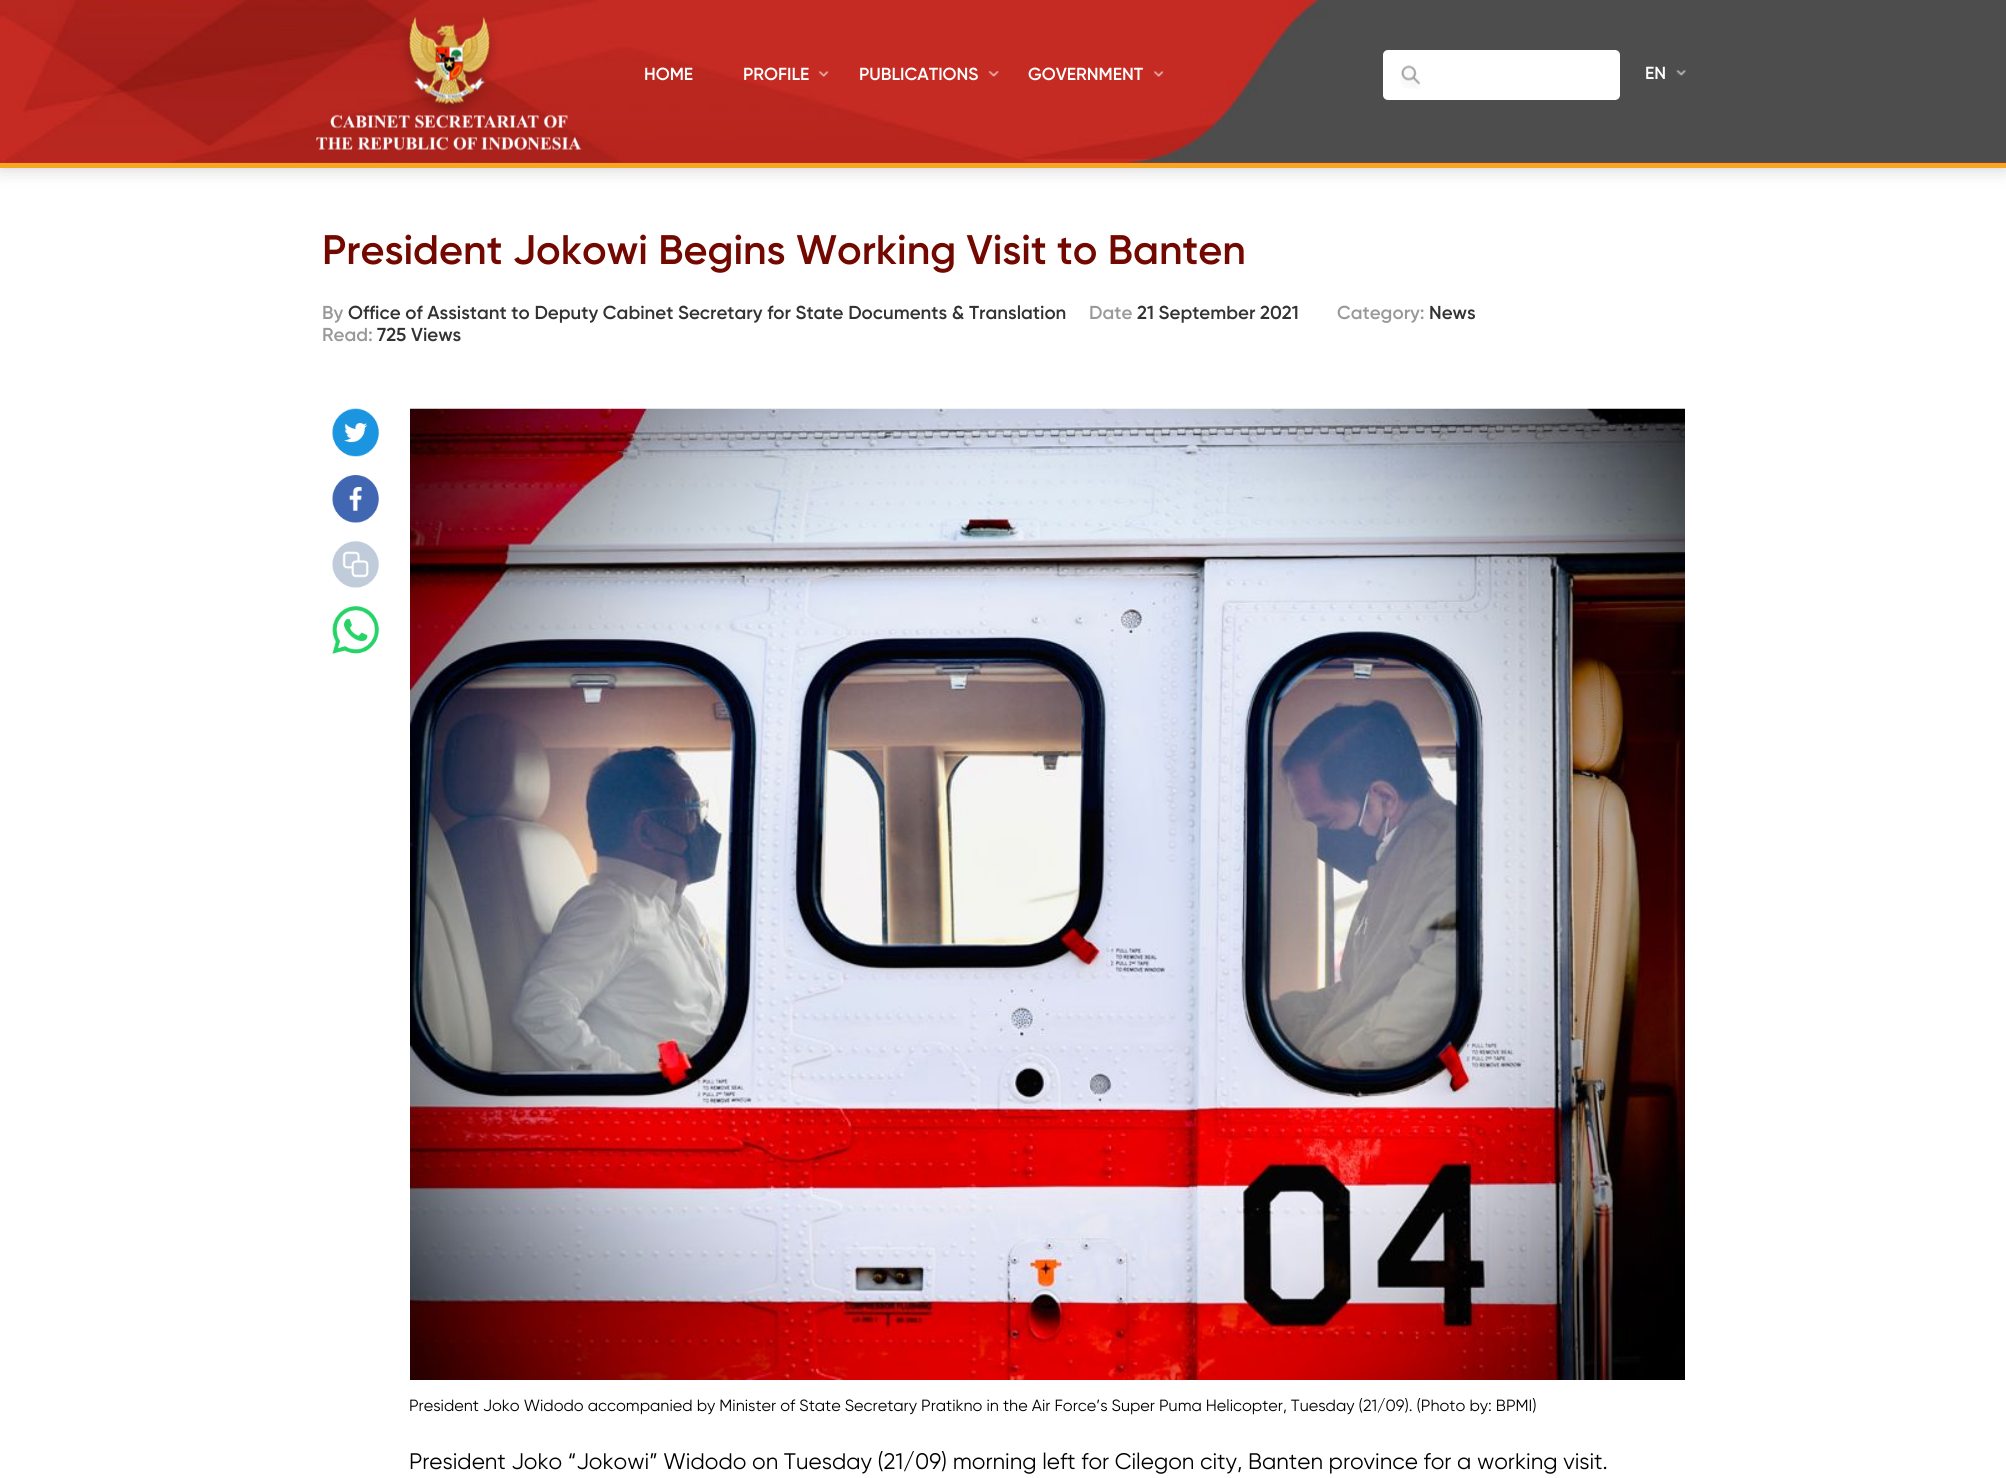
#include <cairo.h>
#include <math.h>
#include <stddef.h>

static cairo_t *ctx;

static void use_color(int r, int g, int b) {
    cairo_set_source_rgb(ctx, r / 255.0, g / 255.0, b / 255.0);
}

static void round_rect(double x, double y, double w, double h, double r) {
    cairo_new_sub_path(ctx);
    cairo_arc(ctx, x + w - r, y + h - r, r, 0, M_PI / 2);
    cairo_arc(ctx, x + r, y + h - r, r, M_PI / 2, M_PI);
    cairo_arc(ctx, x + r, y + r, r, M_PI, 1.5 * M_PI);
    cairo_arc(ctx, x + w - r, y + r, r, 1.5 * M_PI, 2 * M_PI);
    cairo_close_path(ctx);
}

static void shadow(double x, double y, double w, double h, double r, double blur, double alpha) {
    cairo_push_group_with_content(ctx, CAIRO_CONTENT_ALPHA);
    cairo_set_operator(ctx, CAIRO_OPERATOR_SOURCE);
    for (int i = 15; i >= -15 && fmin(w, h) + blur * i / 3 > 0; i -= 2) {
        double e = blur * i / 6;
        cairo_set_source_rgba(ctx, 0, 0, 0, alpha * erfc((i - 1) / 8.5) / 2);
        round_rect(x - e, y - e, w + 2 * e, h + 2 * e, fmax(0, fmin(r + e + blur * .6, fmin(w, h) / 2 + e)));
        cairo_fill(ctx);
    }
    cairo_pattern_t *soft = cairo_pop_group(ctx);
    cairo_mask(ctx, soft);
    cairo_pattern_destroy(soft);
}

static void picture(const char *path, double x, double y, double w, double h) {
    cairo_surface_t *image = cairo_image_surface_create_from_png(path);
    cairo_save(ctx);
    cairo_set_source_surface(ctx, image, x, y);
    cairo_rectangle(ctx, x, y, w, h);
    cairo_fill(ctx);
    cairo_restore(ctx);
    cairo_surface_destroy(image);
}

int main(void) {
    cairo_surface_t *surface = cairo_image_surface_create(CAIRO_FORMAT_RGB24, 2006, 1478);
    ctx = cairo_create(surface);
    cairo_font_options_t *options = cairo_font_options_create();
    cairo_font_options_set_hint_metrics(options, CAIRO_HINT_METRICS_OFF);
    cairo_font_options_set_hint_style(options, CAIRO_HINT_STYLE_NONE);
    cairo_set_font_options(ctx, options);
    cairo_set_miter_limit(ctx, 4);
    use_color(255, 255, 255);
    cairo_paint(ctx);
    use_color(0, 0, 0);
    shadow(0, 0, 2006, 168, 0, 9.5, 0.2);
    use_color(197, 43, 35);
    cairo_rectangle(ctx, 0, 162, 2006, 1);
    cairo_fill(ctx);
    picture("img1.png", 0, 0, 2006, 163);
    use_color(245, 166, 35);
    cairo_rectangle(ctx, 0, 163, 2006, 5);
    cairo_fill(ctx);
    picture("img2.png", 316, 16, 266, 135);
    cairo_select_font_face(ctx, "Gilroy SemiBold", CAIRO_FONT_SLANT_NORMAL, CAIRO_FONT_WEIGHT_NORMAL);
    cairo_set_font_size(ctx, 17.5);
    use_color(255, 255, 255);
    cairo_move_to(ctx, 644, 80);
    cairo_show_text(ctx, "HOME");
    picture("img3.png", 818, 71, 11, 6);
    cairo_move_to(ctx, 743, 80);
    cairo_show_text(ctx, "PROFILE");
    picture("img4.png", 988, 71, 11, 6);
    cairo_move_to(ctx, 859, 80);
    cairo_show_text(ctx, "PUBLICATIONS");
    picture("img5.png", 1153, 71, 11, 6);
    cairo_move_to(ctx, 1028, 80);
    cairo_show_text(ctx, "GOVERNMENT");
    round_rect(1383, 50, 237, 50, 5);
    cairo_fill(ctx);
    picture("img6.png", 1400, 65, 20, 24);
    picture("img7.png", 1676, 70, 10, 6);
    cairo_move_to(ctx, 1645, 79);
    cairo_show_text(ctx, "EN");
    cairo_set_font_size(ctx, 41.25);
    use_color(114, 8, 0);
    cairo_move_to(ctx, 322, 264);
    cairo_show_text(ctx, "President Jokowi Begins Working Visit to Banten");
    cairo_set_font_size(ctx, 18.75);
    use_color(153, 153, 153);
    cairo_move_to(ctx, 322, 319);
    cairo_show_text(ctx, "By");
    use_color(51, 51, 51);
    cairo_move_to(ctx, 348, 319);
    cairo_show_text(ctx, "Office of Assistant to Deputy Cabinet Secretary for State Documents & Translation");
    use_color(153, 153, 153);
    cairo_move_to(ctx, 1089, 319);
    cairo_show_text(ctx, "Date");
    use_color(51, 51, 51);
    cairo_move_to(ctx, 1137, 319);
    cairo_show_text(ctx, "21 September 2021");
    use_color(153, 153, 153);
    cairo_move_to(ctx, 1337, 319);
    cairo_show_text(ctx, "Category:");
    use_color(51, 51, 51);
    cairo_move_to(ctx, 1429, 319);
    cairo_show_text(ctx, "News");
    use_color(153, 153, 153);
    cairo_move_to(ctx, 322, 341);
    cairo_show_text(ctx, "Read:");
    use_color(51, 51, 51);
    cairo_move_to(ctx, 377, 341);
    cairo_show_text(ctx, "725 Views");
    picture("img8.png", 332, 408, 47, 49);
    picture("img9.png", 332, 475, 47, 48);
    picture("img10.png", 332, 541, 47, 47);
    picture("img11.png", 332, 606, 47, 48);
    picture("img12.png", 410, 408, 1275, 972);
    cairo_select_font_face(ctx, "Gilroy", CAIRO_FONT_SLANT_NORMAL, CAIRO_FONT_WEIGHT_NORMAL);
    cairo_set_font_size(ctx, 16.25);
    use_color(0, 0, 0);
    cairo_move_to(ctx, 409, 1411);
    cairo_show_text(ctx, "President Joko Widodo accompanied by Minister of State Secretary Pratikno in the Air Force’s Super Puma Helicopter, Tuesday (21/09). (Photo by: BPMI)");
    cairo_set_font_size(ctx, 22.5);
    cairo_move_to(ctx, 409, 1469);
    cairo_show_text(ctx, "President Joko “Jokowi” Widodo on Tuesday (21/09) morning left for Cilegon city, Banten province for a working visit.");
    cairo_surface_write_to_png(surface, "result.png");
    cairo_font_options_destroy(options);
    cairo_destroy(ctx);
    cairo_surface_destroy(surface);
    return 0;
}
